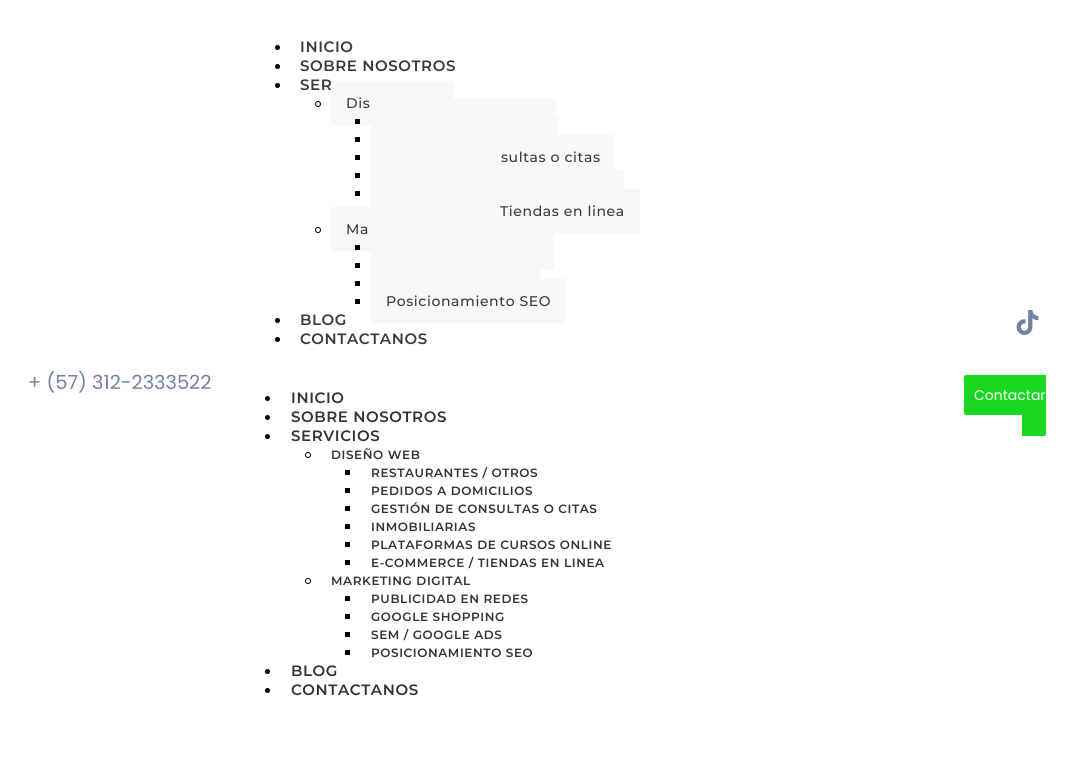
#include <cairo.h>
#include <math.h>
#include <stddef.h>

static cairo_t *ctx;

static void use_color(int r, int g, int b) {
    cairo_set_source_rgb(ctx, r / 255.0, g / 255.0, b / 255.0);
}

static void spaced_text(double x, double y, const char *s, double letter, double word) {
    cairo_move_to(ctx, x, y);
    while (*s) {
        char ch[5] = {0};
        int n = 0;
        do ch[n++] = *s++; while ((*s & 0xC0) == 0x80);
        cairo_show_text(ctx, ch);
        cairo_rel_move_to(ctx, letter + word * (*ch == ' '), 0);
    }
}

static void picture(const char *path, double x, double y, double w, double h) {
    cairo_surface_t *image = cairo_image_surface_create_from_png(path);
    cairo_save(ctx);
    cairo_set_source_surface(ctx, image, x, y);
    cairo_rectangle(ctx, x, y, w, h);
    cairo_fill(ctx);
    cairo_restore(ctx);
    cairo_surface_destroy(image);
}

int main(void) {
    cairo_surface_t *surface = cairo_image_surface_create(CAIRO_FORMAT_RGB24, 1071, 759);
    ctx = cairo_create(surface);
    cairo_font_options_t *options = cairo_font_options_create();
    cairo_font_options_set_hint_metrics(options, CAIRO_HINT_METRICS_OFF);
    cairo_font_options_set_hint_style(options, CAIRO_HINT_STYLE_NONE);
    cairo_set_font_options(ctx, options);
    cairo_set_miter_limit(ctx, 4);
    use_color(255, 255, 255);
    cairo_paint(ctx);
    cairo_select_font_face(ctx, "Poppins", CAIRO_FONT_SLANT_NORMAL, CAIRO_FONT_WEIGHT_NORMAL);
    cairo_set_font_size(ctx, 19.4);
    use_color(115, 132, 162);
    cairo_move_to(ctx, 28, 389);
    cairo_show_text(ctx, "+ (57) 312-2333522");
    use_color(0, 0, 0);
    cairo_new_path(ctx);
    cairo_arc(ctx, 277.5, 47.5, 2.5, 0, 2 * M_PI);
    cairo_fill(ctx);
    cairo_select_font_face(ctx, "Montserrat SemiBold", CAIRO_FONT_SLANT_NORMAL, CAIRO_FONT_WEIGHT_NORMAL);
    cairo_set_font_size(ctx, 15);
    use_color(58, 58, 58);
    spaced_text(300, 52, "INICIO", 0.6, 0);
    use_color(0, 0, 0);
    cairo_new_path(ctx);
    cairo_arc(ctx, 277.5, 66.5, 2.5, 0, 2 * M_PI);
    cairo_fill(ctx);
    use_color(58, 58, 58);
    spaced_text(300, 71, "SOBRE NOSOTROS", 0.6, 0);
    use_color(0, 0, 0);
    cairo_new_path(ctx);
    cairo_arc(ctx, 277.5, 85.5, 2.5, 0, 2 * M_PI);
    cairo_fill(ctx);
    use_color(58, 58, 58);
    spaced_text(300, 90, "SER", 0.6, 0);
    cairo_new_path(ctx);
    cairo_arc(ctx, 318, 104, 2.5, 0, 2 * M_PI);
    use_color(0, 0, 0);
    cairo_set_line_width(ctx, 1);
    cairo_stroke(ctx);
    use_color(248, 248, 248);
    cairo_rectangle(ctx, 331, 81, 108, 44);
    cairo_fill(ctx);
    cairo_select_font_face(ctx, "Montserrat Medium", CAIRO_FONT_SLANT_NORMAL, CAIRO_FONT_WEIGHT_NORMAL);
    cairo_set_font_size(ctx, 14);
    use_color(58, 58, 58);
    spaced_text(346, 108, "Dis", 0.6, 0);
    use_color(248, 248, 248);
    cairo_rectangle(ctx, 439, 81, 15, 18);
    cairo_fill(ctx);
    cairo_rectangle(ctx, 439, 99, 117, 18);
    cairo_fill(ctx);
    use_color(0, 0, 0);
    cairo_rectangle(ctx, 355, 119, 5, 5);
    cairo_fill(ctx);
    use_color(248, 248, 248);
    cairo_rectangle(ctx, 371, 117, 188, 18);
    cairo_fill(ctx);
    use_color(0, 0, 0);
    cairo_rectangle(ctx, 355, 137, 5, 5);
    cairo_fill(ctx);
    cairo_rectangle(ctx, 355, 155, 5, 5);
    cairo_fill(ctx);
    use_color(248, 248, 248);
    cairo_rectangle(ctx, 371, 135, 244, 36);
    cairo_fill(ctx);
    use_color(58, 58, 58);
    spaced_text(501, 162, "sultas o citas", 0.6, 0);
    use_color(248, 248, 248);
    cairo_rectangle(ctx, 371, 171, 253, 18);
    cairo_fill(ctx);
    use_color(0, 0, 0);
    cairo_rectangle(ctx, 355, 191, 5, 5);
    cairo_fill(ctx);
    cairo_rectangle(ctx, 355, 173, 5, 5);
    cairo_fill(ctx);
    use_color(248, 248, 248);
    cairo_rectangle(ctx, 371, 189, 269, 44);
    cairo_fill(ctx);
    use_color(58, 58, 58);
    spaced_text(500, 216, "Tiendas en linea", 0.6, 0);
    cairo_new_path(ctx);
    cairo_arc(ctx, 318, 230, 2.5, 0, 2 * M_PI);
    use_color(0, 0, 0);
    cairo_stroke(ctx);
    use_color(248, 248, 248);
    cairo_rectangle(ctx, 331, 207, 150, 44);
    cairo_fill(ctx);
    use_color(58, 58, 58);
    spaced_text(346, 234, "Ma", 0.6, 0);
    use_color(0, 0, 0);
    cairo_rectangle(ctx, 355, 245, 5, 5);
    cairo_fill(ctx);
    use_color(248, 248, 248);
    cairo_rectangle(ctx, 371, 233, 183, 36);
    cairo_fill(ctx);
    use_color(0, 0, 0);
    cairo_rectangle(ctx, 355, 263, 5, 5);
    cairo_fill(ctx);
    use_color(248, 248, 248);
    cairo_rectangle(ctx, 371, 269, 169, 10);
    cairo_fill(ctx);
    use_color(0, 0, 0);
    cairo_rectangle(ctx, 355, 281, 5, 5);
    cairo_fill(ctx);
    cairo_rectangle(ctx, 355, 299, 5, 5);
    cairo_fill(ctx);
    use_color(248, 248, 248);
    cairo_rectangle(ctx, 371, 279, 195, 44);
    cairo_fill(ctx);
    use_color(58, 58, 58);
    spaced_text(386, 306, "Posicionamiento SEO", 0.6, 0);
    use_color(0, 0, 0);
    cairo_new_path(ctx);
    cairo_arc(ctx, 277.5, 320.5, 2.5, 0, 2 * M_PI);
    cairo_fill(ctx);
    cairo_select_font_face(ctx, "Montserrat SemiBold", CAIRO_FONT_SLANT_NORMAL, CAIRO_FONT_WEIGHT_NORMAL);
    cairo_set_font_size(ctx, 15);
    use_color(58, 58, 58);
    spaced_text(300, 325, "BLOG", 0.6, 0);
    use_color(0, 0, 0);
    cairo_new_path(ctx);
    cairo_arc(ctx, 277.5, 339.5, 2.5, 0, 2 * M_PI);
    cairo_fill(ctx);
    use_color(58, 58, 58);
    spaced_text(300, 344, "CONTACTANOS", 0.6, 0);
    use_color(0, 0, 0);
    cairo_new_path(ctx);
    cairo_arc(ctx, 267.5, 398.5, 2.5, 0, 2 * M_PI);
    cairo_fill(ctx);
    use_color(51, 51, 51);
    spaced_text(291, 403, "INICIO", 0.6, 0);
    use_color(0, 0, 0);
    cairo_new_path(ctx);
    cairo_arc(ctx, 267.5, 417.5, 2.5, 0, 2 * M_PI);
    cairo_fill(ctx);
    use_color(51, 51, 51);
    spaced_text(291, 422, "SOBRE NOSOTROS", 0.6, 0);
    use_color(0, 0, 0);
    cairo_new_path(ctx);
    cairo_arc(ctx, 267.5, 436.5, 2.5, 0, 2 * M_PI);
    cairo_fill(ctx);
    use_color(51, 51, 51);
    spaced_text(291, 441, "SERVICIOS", 0.6, 0);
    cairo_new_path(ctx);
    cairo_arc(ctx, 308, 455, 2.5, 0, 2 * M_PI);
    use_color(0, 0, 0);
    cairo_stroke(ctx);
    cairo_set_font_size(ctx, 12);
    use_color(51, 51, 51);
    spaced_text(331, 459, "DISEÑO WEB", 0.6, 0);
    use_color(0, 0, 0);
    cairo_rectangle(ctx, 345, 470, 5, 5);
    cairo_fill(ctx);
    use_color(51, 51, 51);
    spaced_text(371, 477, "RESTAURANTES / OTROS", 0.6, 0);
    use_color(0, 0, 0);
    cairo_rectangle(ctx, 345, 488, 5, 5);
    cairo_fill(ctx);
    use_color(51, 51, 51);
    spaced_text(371, 495, "PEDIDOS A DOMICILIOS", 0.6, 0);
    use_color(0, 0, 0);
    cairo_rectangle(ctx, 345, 506, 5, 5);
    cairo_fill(ctx);
    use_color(51, 51, 51);
    spaced_text(371, 513, "GESTIÓN DE CONSULTAS O CITAS", 0.6, 0);
    use_color(0, 0, 0);
    cairo_rectangle(ctx, 345, 524, 5, 5);
    cairo_fill(ctx);
    use_color(51, 51, 51);
    spaced_text(371, 531, "INMOBILIARIAS", 0.6, 0);
    use_color(0, 0, 0);
    cairo_rectangle(ctx, 345, 542, 5, 5);
    cairo_fill(ctx);
    use_color(51, 51, 51);
    spaced_text(371, 549, "PLATAFORMAS DE CURSOS ONLINE", 0.6, 0);
    use_color(0, 0, 0);
    cairo_rectangle(ctx, 345, 560, 5, 5);
    cairo_fill(ctx);
    use_color(51, 51, 51);
    spaced_text(371, 567, "E-COMMERCE / TIENDAS EN LINEA", 0.6, 0);
    cairo_new_path(ctx);
    cairo_arc(ctx, 308, 581, 2.5, 0, 2 * M_PI);
    use_color(0, 0, 0);
    cairo_stroke(ctx);
    use_color(51, 51, 51);
    spaced_text(331, 585, "MARKETING DIGITAL", 0.6, 0);
    use_color(0, 0, 0);
    cairo_rectangle(ctx, 345, 596, 5, 5);
    cairo_fill(ctx);
    use_color(51, 51, 51);
    spaced_text(371, 603, "PUBLICIDAD EN REDES", 0.6, 0);
    use_color(0, 0, 0);
    cairo_rectangle(ctx, 345, 614, 5, 5);
    cairo_fill(ctx);
    use_color(51, 51, 51);
    spaced_text(371, 621, "GOOGLE SHOPPING", 0.6, 0);
    use_color(0, 0, 0);
    cairo_rectangle(ctx, 345, 632, 5, 5);
    cairo_fill(ctx);
    use_color(51, 51, 51);
    spaced_text(371, 639, "SEM / GOOGLE ADS", 0.6, 0);
    use_color(0, 0, 0);
    cairo_rectangle(ctx, 345, 650, 5, 5);
    cairo_fill(ctx);
    use_color(51, 51, 51);
    spaced_text(371, 657, "POSICIONAMIENTO SEO", 0.6, 0);
    use_color(0, 0, 0);
    cairo_new_path(ctx);
    cairo_arc(ctx, 267.5, 671.5, 2.5, 0, 2 * M_PI);
    cairo_fill(ctx);
    cairo_set_font_size(ctx, 15);
    use_color(51, 51, 51);
    spaced_text(291, 676, "BLOG", 0.6, 0);
    use_color(0, 0, 0);
    cairo_new_path(ctx);
    cairo_arc(ctx, 267.5, 690.5, 2.5, 0, 2 * M_PI);
    cairo_fill(ctx);
    use_color(51, 51, 51);
    spaced_text(291, 695, "CONTACTANOS", 0.6, 0);
    picture("img1.png", 1016, 310, 23, 25);
    use_color(26, 216, 33);
    cairo_new_path(ctx);
    cairo_move_to(ctx, 966, 375);
    cairo_line_to(ctx, 1046, 375);
    cairo_line_to(ctx, 1046, 415);
    cairo_line_to(ctx, 966, 415);
    cairo_curve_to(ctx, 965, 415, 964, 414, 964, 413);
    cairo_line_to(ctx, 964, 377);
    cairo_curve_to(ctx, 964, 376, 965, 375, 966, 375);
    cairo_close_path(ctx);
    cairo_fill(ctx);
    cairo_new_path(ctx);
    cairo_move_to(ctx, 1022, 396);
    cairo_line_to(ctx, 1044, 396);
    cairo_curve_to(ctx, 1045, 396, 1046, 397, 1046, 398);
    cairo_line_to(ctx, 1046, 434);
    cairo_curve_to(ctx, 1046, 435, 1045, 436, 1044, 436);
    cairo_line_to(ctx, 1022, 436);
    cairo_close_path(ctx);
    cairo_fill(ctx);
    cairo_select_font_face(ctx, "Poppins", CAIRO_FONT_SLANT_NORMAL, CAIRO_FONT_WEIGHT_NORMAL);
    cairo_set_font_size(ctx, 14);
    use_color(255, 255, 255);
    cairo_move_to(ctx, 974, 400);
    cairo_show_text(ctx, "Contactar");
    cairo_surface_write_to_png(surface, "result.png");
    cairo_font_options_destroy(options);
    cairo_destroy(ctx);
    cairo_surface_destroy(surface);
    return 0;
}
